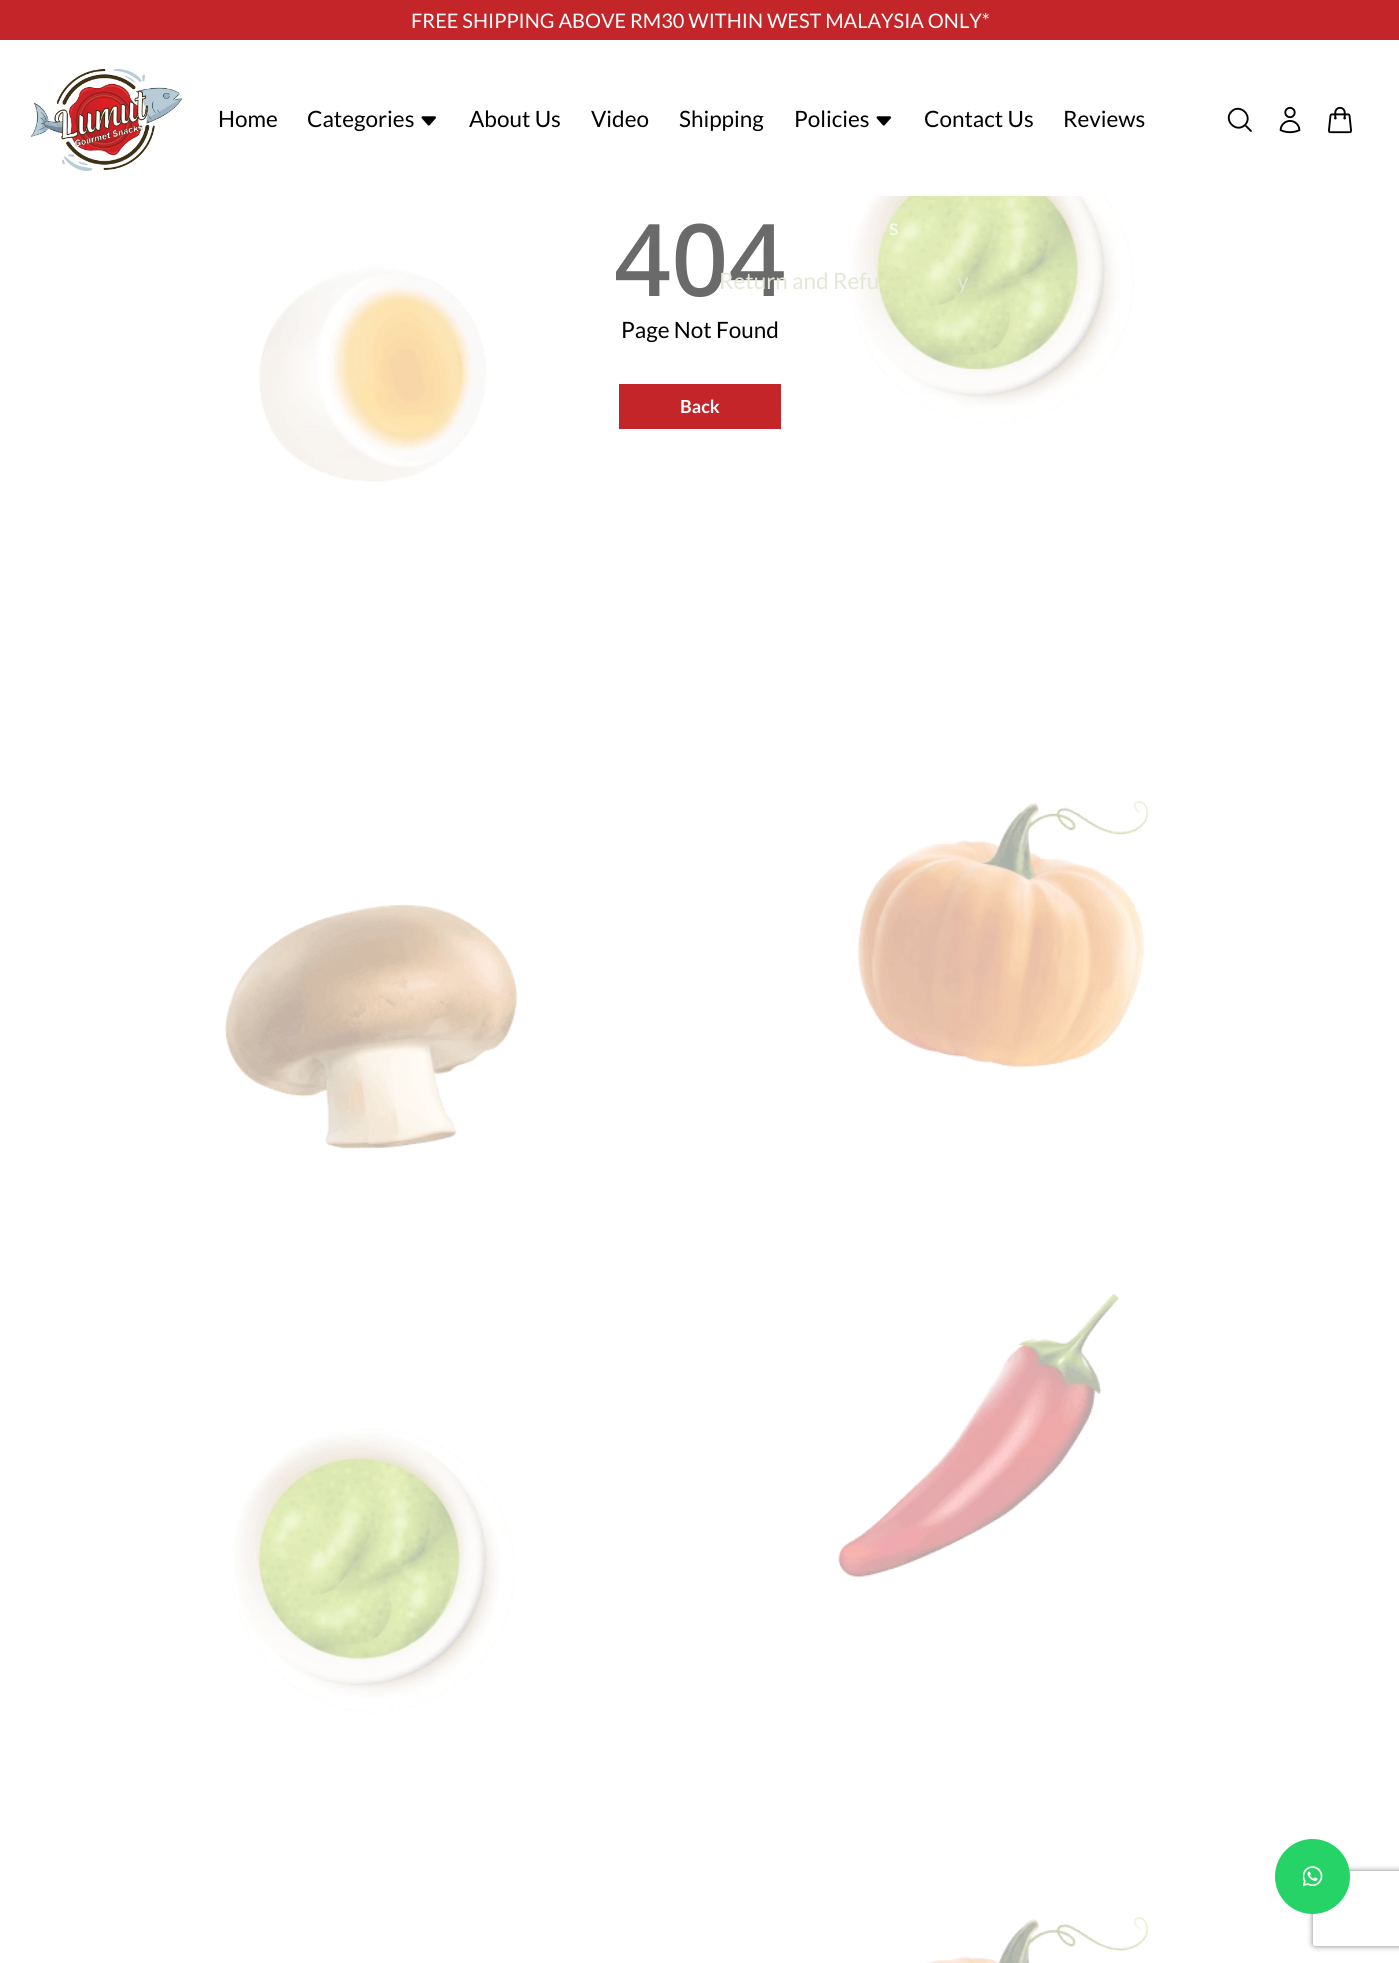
#include <cairo.h>
#include <math.h>
#include <stddef.h>

static cairo_t *ctx;

static void use_color(int r, int g, int b) {
    cairo_set_source_rgb(ctx, r / 255.0, g / 255.0, b / 255.0);
}

static void round_rect(double x, double y, double w, double h, double r) {
    cairo_new_sub_path(ctx);
    cairo_arc(ctx, x + w - r, y + h - r, r, 0, M_PI / 2);
    cairo_arc(ctx, x + r, y + h - r, r, M_PI / 2, M_PI);
    cairo_arc(ctx, x + r, y + r, r, M_PI, 1.5 * M_PI);
    cairo_arc(ctx, x + w - r, y + r, r, 1.5 * M_PI, 2 * M_PI);
    cairo_close_path(ctx);
}

static void shadow(double x, double y, double w, double h, double r, double blur, double alpha) {
    cairo_push_group_with_content(ctx, CAIRO_CONTENT_ALPHA);
    cairo_set_operator(ctx, CAIRO_OPERATOR_SOURCE);
    for (int i = 15; i >= -15 && fmin(w, h) + blur * i / 3 > 0; i -= 2) {
        double e = blur * i / 6;
        cairo_set_source_rgba(ctx, 0, 0, 0, alpha * erfc((i - 1) / 8.5) / 2);
        round_rect(x - e, y - e, w + 2 * e, h + 2 * e, fmax(0, fmin(r + e + blur * .6, fmin(w, h) / 2 + e)));
        cairo_fill(ctx);
    }
    cairo_pattern_t *soft = cairo_pop_group(ctx);
    cairo_mask(ctx, soft);
    cairo_pattern_destroy(soft);
}

static void picture(const char *path, double x, double y, double w, double h) {
    cairo_surface_t *image = cairo_image_surface_create_from_png(path);
    cairo_save(ctx);
    cairo_set_source_surface(ctx, image, x, y);
    cairo_rectangle(ctx, x, y, w, h);
    cairo_fill(ctx);
    cairo_restore(ctx);
    cairo_surface_destroy(image);
}

int main(void) {
    cairo_surface_t *surface = cairo_image_surface_create(CAIRO_FORMAT_RGB24, 1399, 1963);
    ctx = cairo_create(surface);
    cairo_font_options_t *options = cairo_font_options_create();
    cairo_font_options_set_hint_metrics(options, CAIRO_HINT_METRICS_OFF);
    cairo_font_options_set_hint_style(options, CAIRO_HINT_STYLE_NONE);
    cairo_set_font_options(ctx, options);
    cairo_set_miter_limit(ctx, 4);
    use_color(255, 255, 255);
    cairo_paint(ctx);
    picture("img1.png", 225, 196, 924, 1767);
    use_color(196, 37, 41);
    cairo_rectangle(ctx, 0, 0, 1399, 40);
    cairo_fill(ctx);
    cairo_select_font_face(ctx, "Lato", CAIRO_FONT_SLANT_NORMAL, CAIRO_FONT_WEIGHT_NORMAL);
    cairo_set_font_size(ctx, 20);
    use_color(255, 255, 255);
    cairo_move_to(ctx, 411, 28);
    cairo_show_text(ctx, "FREE SHIPPING ABOVE RM30 WITHIN WEST MALAYSIA ONLY*");
    picture("img2.png", 31, 69, 152, 102);
    cairo_set_font_size(ctx, 22.5);
    use_color(0, 0, 0);
    cairo_move_to(ctx, 218, 127);
    cairo_show_text(ctx, "Home");
    cairo_move_to(ctx, 307, 127);
    cairo_show_text(ctx, "Categories");
    picture("img3.png", 421, 116, 15, 10);
    cairo_move_to(ctx, 469, 127);
    cairo_show_text(ctx, "About Us");
    cairo_move_to(ctx, 591, 127);
    cairo_show_text(ctx, "Video");
    cairo_move_to(ctx, 679, 127);
    cairo_show_text(ctx, "Shipping");
    cairo_move_to(ctx, 794, 127);
    cairo_show_text(ctx, "Policies");
    picture("img3.png", 876, 116, 15, 10);
    use_color(248, 250, 239);
    cairo_move_to(ctx, 889, 235);
    cairo_show_text(ctx, "s");
    cairo_select_font_face(ctx, "Noto Sans Medium", CAIRO_FONT_SLANT_NORMAL, CAIRO_FONT_WEIGHT_NORMAL);
    cairo_set_font_size(ctx, 100);
    use_color(106, 106, 106);
    cairo_move_to(ctx, 614, 296);
    cairo_show_text(ctx, "404");
    cairo_select_font_face(ctx, "Lato", CAIRO_FONT_SLANT_NORMAL, CAIRO_FONT_WEIGHT_NORMAL);
    cairo_set_font_size(ctx, 22.5);
    use_color(227, 231, 212);
    cairo_move_to(ctx, 719, 289);
    cairo_show_text(ctx, "Return and Refu");
    cairo_move_to(ctx, 957, 289);
    cairo_show_text(ctx, "y");
    use_color(0, 0, 0);
    cairo_move_to(ctx, 924, 127);
    cairo_show_text(ctx, "Contact Us");
    cairo_move_to(ctx, 1063, 127);
    cairo_show_text(ctx, "Reviews");
    cairo_new_path(ctx);
    cairo_move_to(ctx, 1251, 131);
    cairo_line_to(ctx, 1245, 125);
    cairo_move_to(ctx, 1245, 125);
    cairo_curve_to(ctx, 1253.5, 116, 1240, 103, 1231.5, 111.5);
    cairo_curve_to(ctx, 1223, 120, 1236, 133.5, 1245, 125);
    cairo_close_path(ctx);
    cairo_set_line_width(ctx, 1.9);
    cairo_set_line_cap(ctx, CAIRO_LINE_CAP_ROUND);
    cairo_set_line_join(ctx, CAIRO_LINE_JOIN_ROUND);
    cairo_stroke(ctx);
    picture("img4.png", 1279, 106, 22, 28);
    picture("img5.png", 1328, 106, 24, 28);
    cairo_move_to(ctx, 621, 338);
    cairo_show_text(ctx, "Page Not Found");
    use_color(196, 37, 41);
    cairo_rectangle(ctx, 619, 384, 162, 45);
    cairo_fill(ctx);
    cairo_select_font_face(ctx, "Lato", CAIRO_FONT_SLANT_NORMAL, CAIRO_FONT_WEIGHT_BOLD);
    cairo_set_font_size(ctx, 18);
    use_color(255, 255, 255);
    cairo_move_to(ctx, 680, 413);
    cairo_show_text(ctx, "Back");
    cairo_save(ctx);
    cairo_set_fill_rule(ctx, CAIRO_FILL_RULE_EVEN_ODD);
    cairo_new_path(ctx);
    cairo_move_to(ctx, 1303, 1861);
    cairo_line_to(ctx, 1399, 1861);
    cairo_line_to(ctx, 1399, 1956);
    cairo_line_to(ctx, 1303, 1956);
    cairo_close_path(ctx);
    cairo_move_to(ctx, 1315.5, 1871);
    cairo_line_to(ctx, 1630.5, 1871);
    cairo_curve_to(ctx, 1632, 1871, 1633, 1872, 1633, 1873.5);
    cairo_line_to(ctx, 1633, 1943.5);
    cairo_curve_to(ctx, 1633, 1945, 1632, 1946, 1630.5, 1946);
    cairo_line_to(ctx, 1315.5, 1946);
    cairo_curve_to(ctx, 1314, 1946, 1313, 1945, 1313, 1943.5);
    cairo_line_to(ctx, 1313, 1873.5);
    cairo_curve_to(ctx, 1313, 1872, 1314, 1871, 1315.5, 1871);
    cairo_close_path(ctx);
    cairo_clip(ctx);
    use_color(128, 128, 128);
    shadow(1313, 1871, 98, 75, 2.5, 3, 1);
    cairo_restore(ctx);
    use_color(37, 211, 102);
    cairo_arc(ctx, 1312.5, 1876.5, 37.5, 0, 2 * M_PI);
    cairo_fill(ctx);
    picture("img6.png", 1303, 1866, 20, 20);
    cairo_surface_write_to_png(surface, "result.png");
    cairo_font_options_destroy(options);
    cairo_destroy(ctx);
    cairo_surface_destroy(surface);
    return 0;
}
